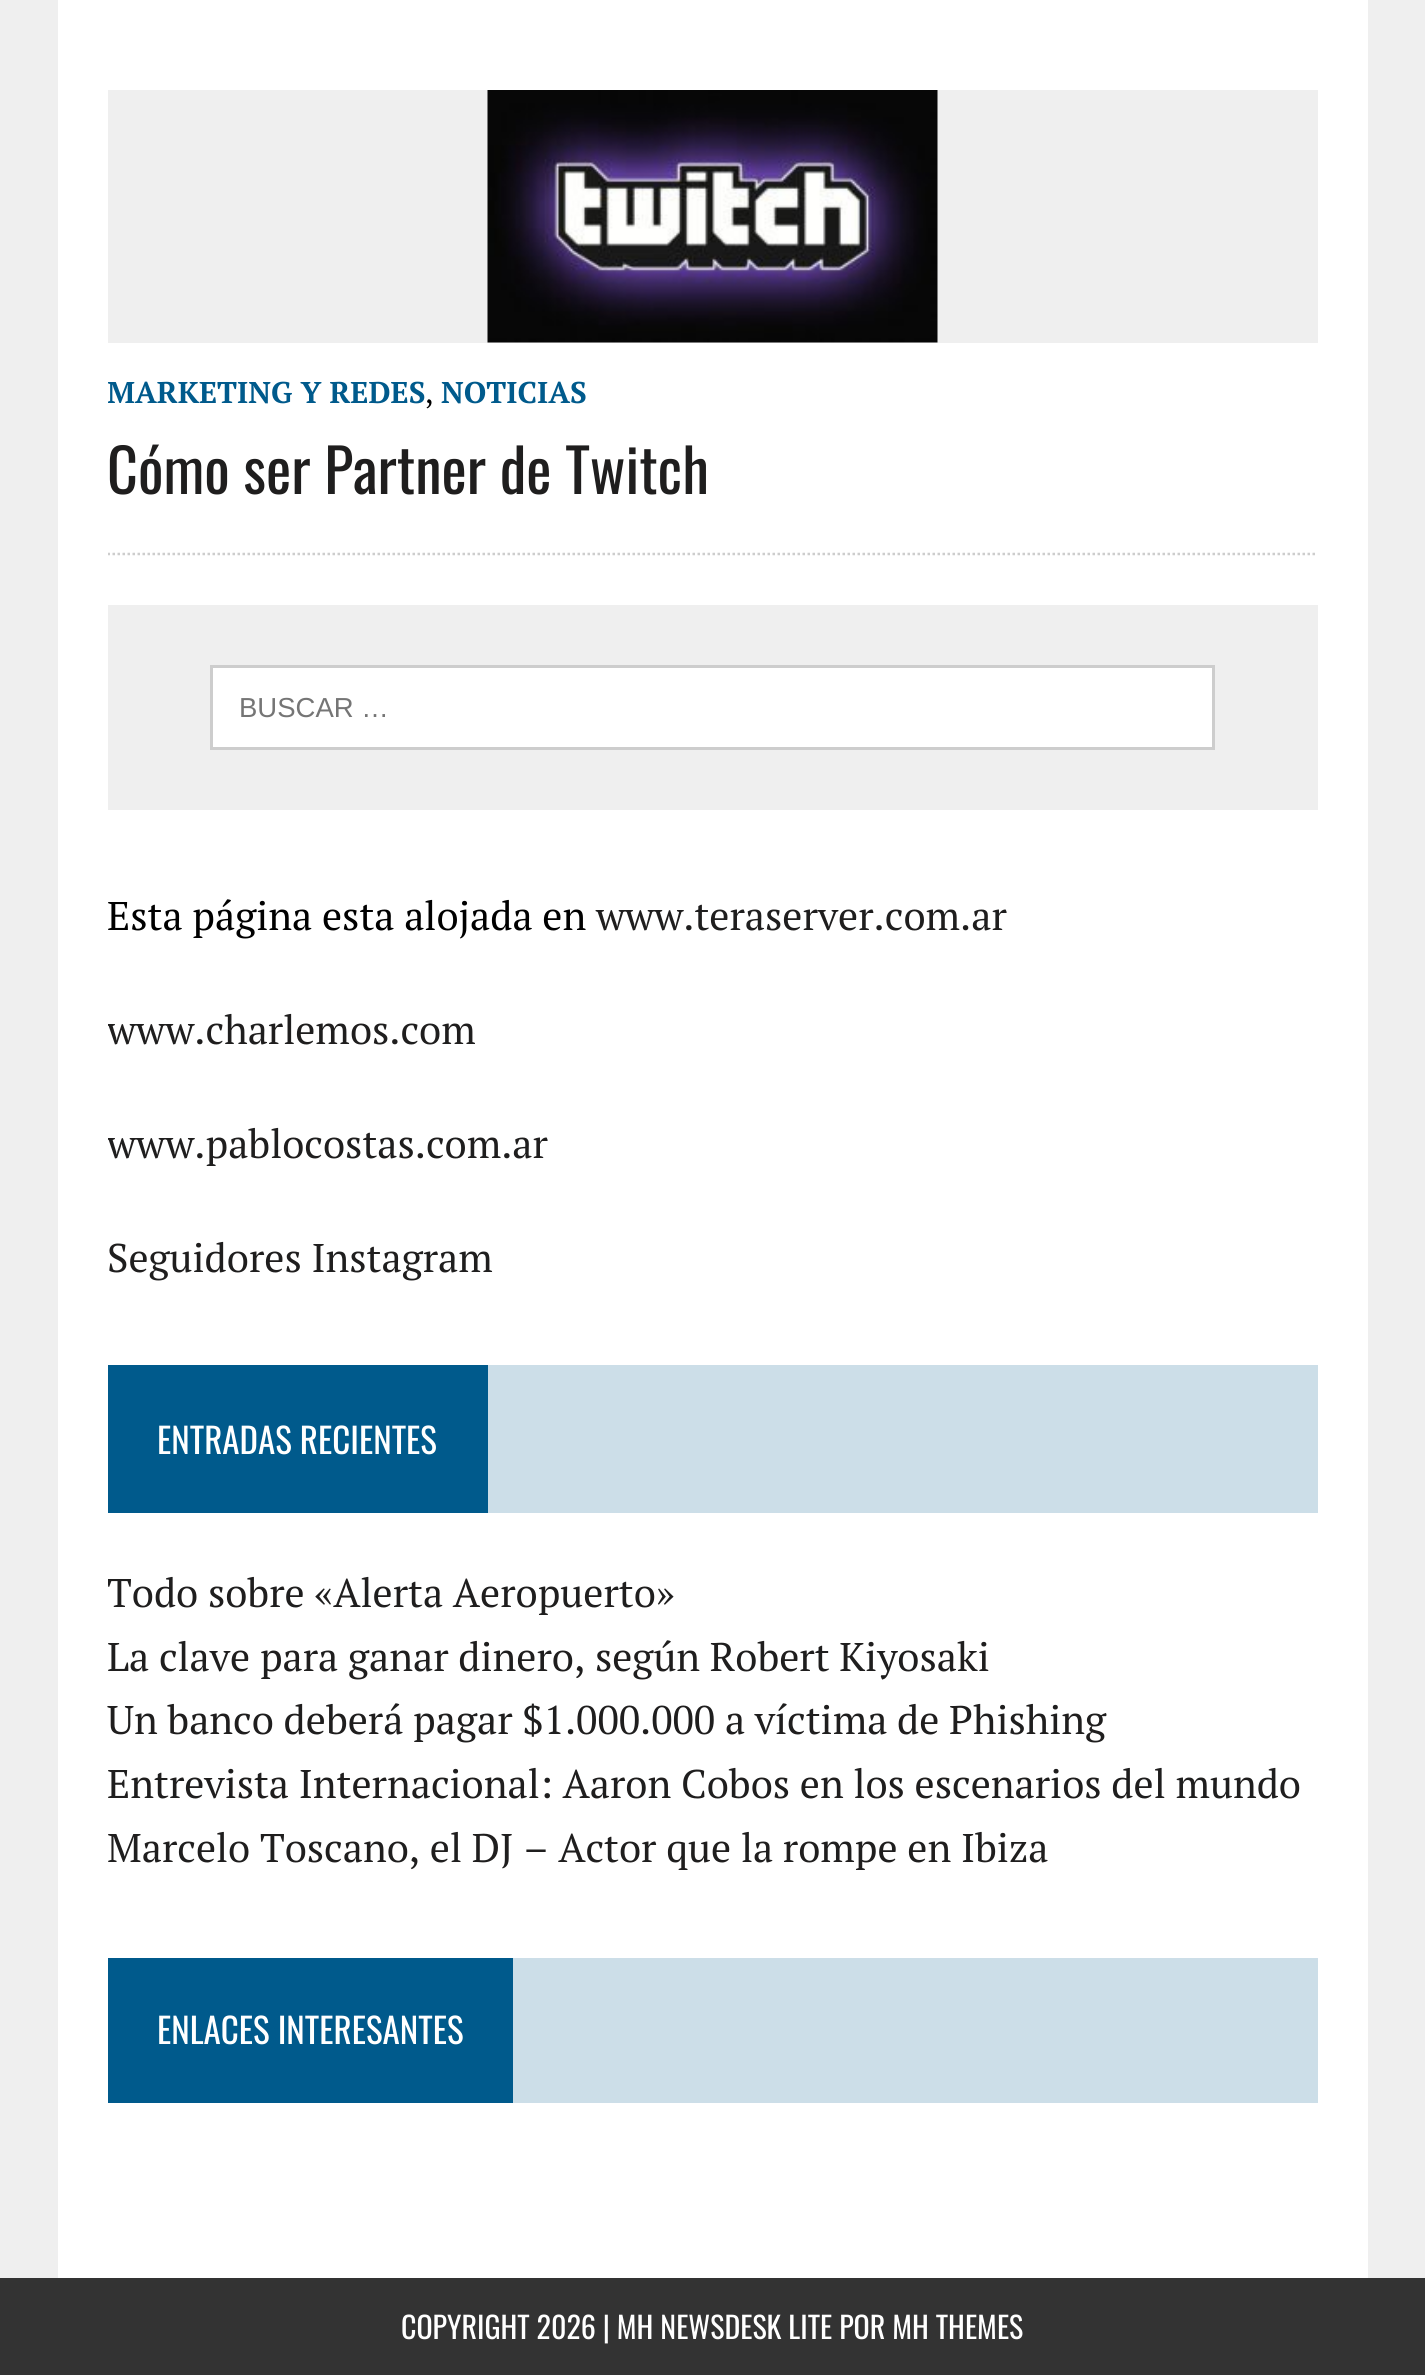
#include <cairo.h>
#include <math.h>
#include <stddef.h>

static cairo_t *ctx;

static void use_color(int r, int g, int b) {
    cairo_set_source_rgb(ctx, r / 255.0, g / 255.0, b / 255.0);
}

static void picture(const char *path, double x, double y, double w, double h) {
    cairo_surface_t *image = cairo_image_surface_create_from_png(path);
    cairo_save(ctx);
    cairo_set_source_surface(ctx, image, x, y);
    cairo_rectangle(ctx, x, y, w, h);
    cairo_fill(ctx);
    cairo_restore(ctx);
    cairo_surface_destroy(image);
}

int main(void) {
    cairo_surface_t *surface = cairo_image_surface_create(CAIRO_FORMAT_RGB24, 1425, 2375);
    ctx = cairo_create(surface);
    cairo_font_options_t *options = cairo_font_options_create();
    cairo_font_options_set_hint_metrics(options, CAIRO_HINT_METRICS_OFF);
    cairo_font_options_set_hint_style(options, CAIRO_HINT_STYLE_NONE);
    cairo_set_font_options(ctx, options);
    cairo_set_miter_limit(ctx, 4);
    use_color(239, 239, 239);
    cairo_paint(ctx);
    use_color(255, 255, 255);
    cairo_rectangle(ctx, 58, 0, 1310, 2278);
    cairo_fill(ctx);
    use_color(239, 239, 239);
    cairo_rectangle(ctx, 108, 90, 1210, 253);
    cairo_fill(ctx);
    picture("img1.png", 487, 90, 451, 253);
    cairo_save(ctx);
    cairo_rectangle(ctx, 108, 0, 1210, 605);
    cairo_clip(ctx);
    cairo_select_font_face(ctx, "PT Serif", CAIRO_FONT_SLANT_NORMAL, CAIRO_FONT_WEIGHT_BOLD);
    cairo_set_font_size(ctx, 30);
    use_color(0, 90, 140);
    cairo_move_to(ctx, 107, 403);
    cairo_show_text(ctx, "MARKETING Y REDES");
    cairo_restore(ctx);
    cairo_select_font_face(ctx, "PT Serif", CAIRO_FONT_SLANT_NORMAL, CAIRO_FONT_WEIGHT_NORMAL);
    cairo_set_font_size(ctx, 30);
    use_color(0, 0, 0);
    cairo_move_to(ctx, 425, 403);
    cairo_show_text(ctx, ",");
    cairo_select_font_face(ctx, "PT Serif", CAIRO_FONT_SLANT_NORMAL, CAIRO_FONT_WEIGHT_BOLD);
    use_color(0, 90, 140);
    cairo_move_to(ctx, 441, 403);
    cairo_show_text(ctx, "NOTICIAS");
    cairo_select_font_face(ctx, "Oswald", CAIRO_FONT_SLANT_NORMAL, CAIRO_FONT_WEIGHT_NORMAL);
    cairo_set_font_size(ctx, 60);
    use_color(31, 30, 30);
    cairo_move_to(ctx, 107, 494);
    cairo_show_text(ctx, "Cómo ser Partner de Twitch");
    cairo_save(ctx);
    cairo_rectangle(ctx, 108, 0, 1210, 605);
    cairo_clip(ctx);
    cairo_new_path(ctx);
    cairo_move_to(ctx, 107.5, 554);
    cairo_line_to(ctx, 1317.5, 554);
    use_color(205, 205, 205);
    cairo_set_line_width(ctx, 2.5);
    cairo_set_dash(ctx, (double[]){2.5, 2.5}, 2, 0);
    cairo_stroke(ctx);
    cairo_restore(ctx);
    use_color(239, 239, 239);
    cairo_rectangle(ctx, 108, 605, 1210, 205);
    cairo_fill(ctx);
    use_color(255, 255, 255);
    cairo_rectangle(ctx, 211.5, 666.5, 1002, 82);
    cairo_fill_preserve(ctx);
    use_color(205, 205, 205);
    cairo_set_line_width(ctx, 3);
    cairo_stroke(ctx);
    cairo_select_font_face(ctx, "Liberation Sans", CAIRO_FONT_SLANT_NORMAL, CAIRO_FONT_WEIGHT_NORMAL);
    cairo_set_font_size(ctx, 27.5);
    use_color(117, 117, 117);
    cairo_move_to(ctx, 239, 717);
    cairo_show_text(ctx, "BUSCAR …");
    cairo_select_font_face(ctx, "PT Serif", CAIRO_FONT_SLANT_NORMAL, CAIRO_FONT_WEIGHT_NORMAL);
    cairo_set_font_size(ctx, 40);
    use_color(0, 0, 0);
    cairo_move_to(ctx, 107, 930);
    cairo_show_text(ctx, "Esta página esta alojada en");
    use_color(31, 30, 30);
    cairo_move_to(ctx, 596, 930);
    cairo_show_text(ctx, "www.teraserver.com.ar");
    cairo_save(ctx);
    cairo_rectangle(ctx, 108, 885, 1210, 405);
    cairo_clip(ctx);
    cairo_move_to(ctx, 107, 1044);
    cairo_show_text(ctx, "www.charlemos.com");
    cairo_move_to(ctx, 107, 1158);
    cairo_show_text(ctx, "www.pablocostas.com.ar");
    cairo_restore(ctx);
    cairo_move_to(ctx, 107, 1272);
    cairo_show_text(ctx, "Seguidores Instagram");
    use_color(204, 222, 232);
    cairo_rectangle(ctx, 488, 1365, 830, 148);
    cairo_fill(ctx);
    use_color(0, 90, 140);
    cairo_rectangle(ctx, 108, 1365, 380, 148);
    cairo_fill(ctx);
    cairo_select_font_face(ctx, "Oswald", CAIRO_FONT_SLANT_NORMAL, CAIRO_FONT_WEIGHT_NORMAL);
    cairo_set_font_size(ctx, 35);
    use_color(255, 255, 255);
    cairo_move_to(ctx, 157, 1454);
    cairo_show_text(ctx, "ENTRADAS RECIENTES");
    cairo_save(ctx);
    cairo_rectangle(ctx, 108, 1365, 1210, 518);
    cairo_clip(ctx);
    cairo_select_font_face(ctx, "PT Serif", CAIRO_FONT_SLANT_NORMAL, CAIRO_FONT_WEIGHT_NORMAL);
    cairo_set_font_size(ctx, 40);
    use_color(31, 30, 30);
    cairo_move_to(ctx, 107, 1607);
    cairo_show_text(ctx, "Todo sobre «Alerta Aeropuerto»");
    cairo_restore(ctx);
    cairo_select_font_face(ctx, "PT Serif", CAIRO_FONT_SLANT_NORMAL, CAIRO_FONT_WEIGHT_NORMAL);
    cairo_set_font_size(ctx, 40);
    use_color(31, 30, 30);
    cairo_move_to(ctx, 107, 1671);
    cairo_show_text(ctx, "La clave para ganar dinero, según Robert Kiyosaki");
    cairo_move_to(ctx, 107, 1734);
    cairo_show_text(ctx, "Un banco deberá pagar $1.000.000 a víctima de Phishing");
    cairo_move_to(ctx, 107, 1798);
    cairo_show_text(ctx, "Entrevista Internacional: Aaron Cobos en los escenarios del mundo");
    cairo_move_to(ctx, 107, 1862);
    cairo_show_text(ctx, "Marcelo Toscano, el DJ – Actor que la rompe en Ibiza");
    use_color(204, 222, 232);
    cairo_rectangle(ctx, 513, 1958, 805, 145);
    cairo_fill(ctx);
    use_color(0, 90, 140);
    cairo_rectangle(ctx, 108, 1958, 405, 145);
    cairo_fill(ctx);
    cairo_select_font_face(ctx, "Oswald", CAIRO_FONT_SLANT_NORMAL, CAIRO_FONT_WEIGHT_NORMAL);
    cairo_set_font_size(ctx, 35);
    use_color(255, 255, 255);
    cairo_move_to(ctx, 157, 2044);
    cairo_show_text(ctx, "ENLACES INTERESANTES");
    use_color(51, 51, 51);
    cairo_rectangle(ctx, 0, 2278, 1425, 97);
    cairo_fill(ctx);
    cairo_set_font_size(ctx, 30);
    use_color(255, 255, 255);
    cairo_move_to(ctx, 401, 2339);
    cairo_show_text(ctx, "COPYRIGHT 2026 | MH NEWSDESK LITE POR MH THEMES");
    cairo_surface_write_to_png(surface, "result.png");
    cairo_font_options_destroy(options);
    cairo_destroy(ctx);
    cairo_surface_destroy(surface);
    return 0;
}
